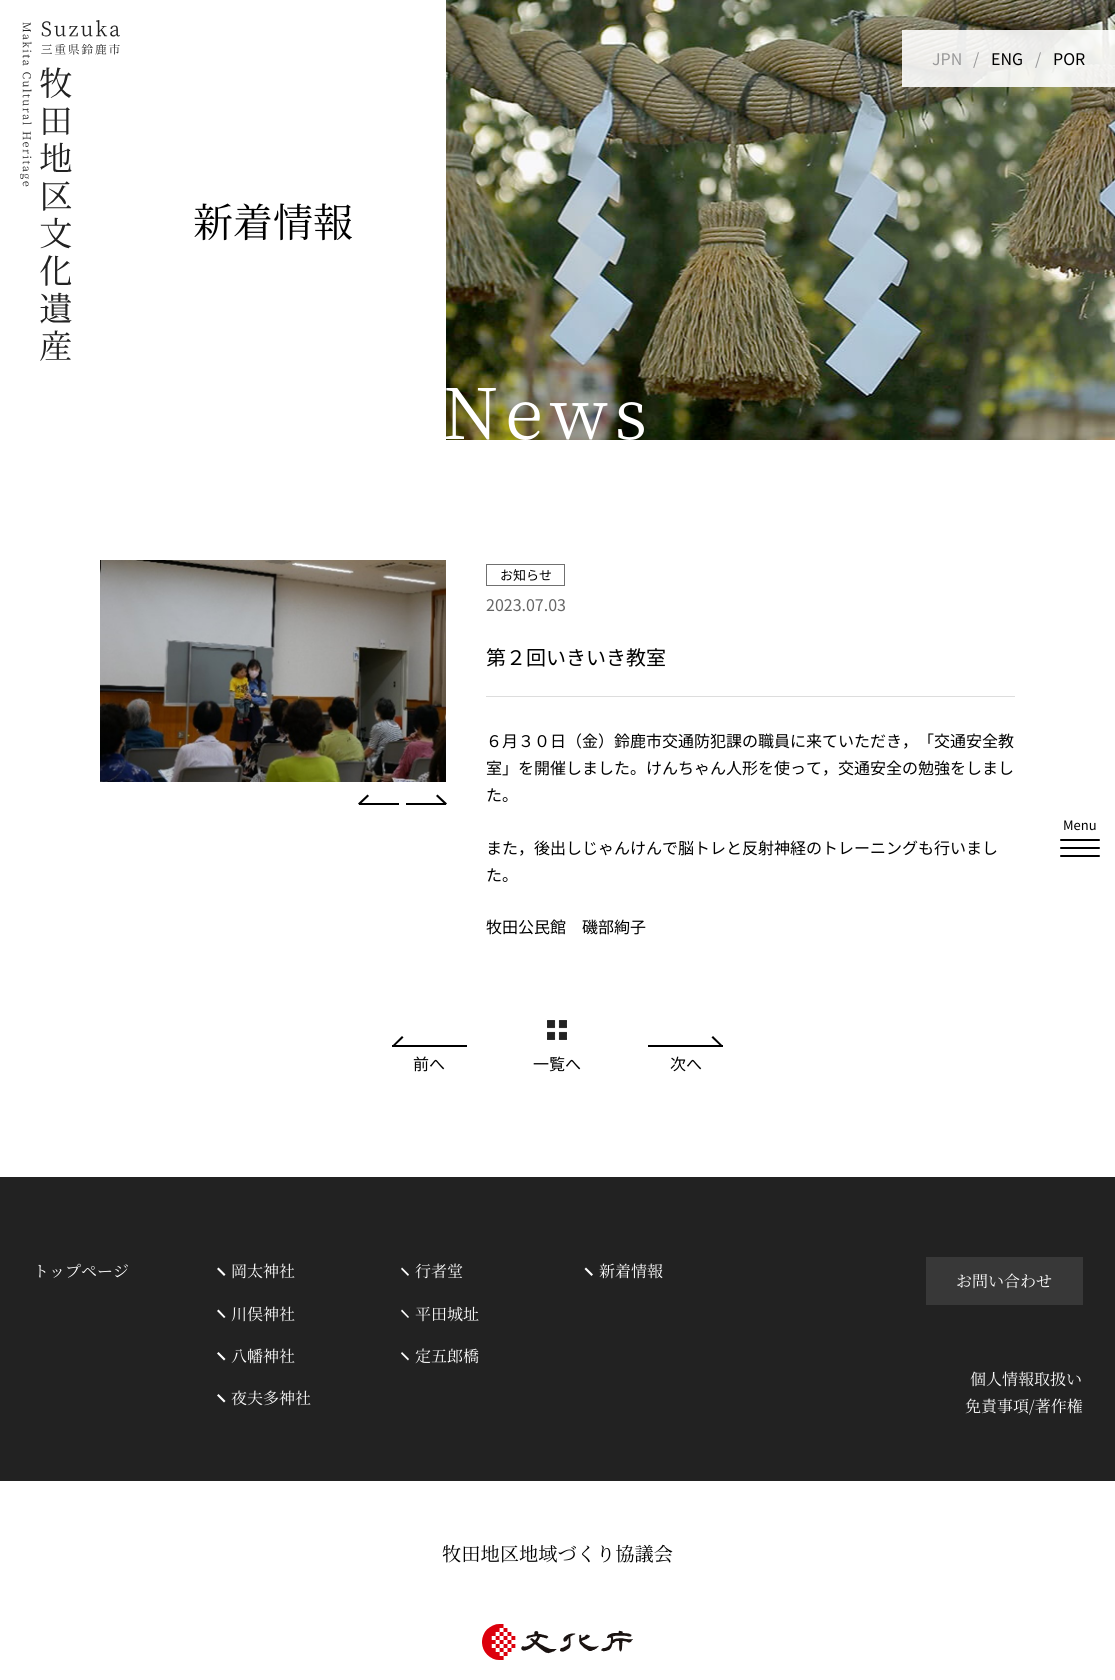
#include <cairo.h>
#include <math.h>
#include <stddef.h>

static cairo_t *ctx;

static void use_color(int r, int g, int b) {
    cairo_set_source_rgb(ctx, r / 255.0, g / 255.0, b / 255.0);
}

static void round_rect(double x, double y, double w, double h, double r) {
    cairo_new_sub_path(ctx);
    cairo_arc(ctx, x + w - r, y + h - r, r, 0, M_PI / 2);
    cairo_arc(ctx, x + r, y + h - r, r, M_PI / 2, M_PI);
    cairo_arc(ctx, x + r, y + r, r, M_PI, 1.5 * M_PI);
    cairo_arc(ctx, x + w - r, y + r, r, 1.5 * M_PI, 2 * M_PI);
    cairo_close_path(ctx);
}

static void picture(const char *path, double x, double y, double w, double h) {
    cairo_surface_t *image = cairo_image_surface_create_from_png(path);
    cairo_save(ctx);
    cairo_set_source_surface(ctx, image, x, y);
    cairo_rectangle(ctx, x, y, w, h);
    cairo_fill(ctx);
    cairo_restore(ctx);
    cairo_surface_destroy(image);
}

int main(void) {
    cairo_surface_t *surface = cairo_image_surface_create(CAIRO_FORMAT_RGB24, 1115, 1680);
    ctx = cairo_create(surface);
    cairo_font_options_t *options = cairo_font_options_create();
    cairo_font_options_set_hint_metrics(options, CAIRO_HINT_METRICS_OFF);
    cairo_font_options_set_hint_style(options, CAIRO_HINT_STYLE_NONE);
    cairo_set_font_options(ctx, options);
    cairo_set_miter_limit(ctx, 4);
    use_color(255, 255, 255);
    cairo_paint(ctx);
    cairo_select_font_face(ctx, "Noto Serif JP ExtraLight", CAIRO_FONT_SLANT_NORMAL, CAIRO_FONT_WEIGHT_NORMAL);
    cairo_set_font_size(ctx, 40);
    use_color(0, 0, 0);
    cairo_move_to(ctx, 193, 237);
    cairo_show_text(ctx, "新着情報");
    picture("img1.png", 446, 0, 669, 440);
    picture("img2.png", 446, 388, 198, 52);
    picture("img3.png", 20, 20, 100, 341);
    cairo_set_source_rgba(ctx, 1, 1, 1, 0.9);
    cairo_rectangle(ctx, 902, 30, 213, 57);
    cairo_fill(ctx);
    cairo_select_font_face(ctx, "Noto Sans JP Thin", CAIRO_FONT_SLANT_NORMAL, CAIRO_FONT_WEIGHT_NORMAL);
    cairo_set_font_size(ctx, 16);
    use_color(153, 153, 153);
    cairo_move_to(ctx, 932, 65);
    cairo_show_text(ctx, "JPN");
    cairo_move_to(ctx, 973, 65);
    cairo_show_text(ctx, "/");
    use_color(0, 0, 0);
    cairo_move_to(ctx, 991, 65);
    cairo_show_text(ctx, "ENG");
    use_color(153, 153, 153);
    cairo_move_to(ctx, 1035, 65);
    cairo_show_text(ctx, "/");
    use_color(0, 0, 0);
    cairo_move_to(ctx, 1053, 65);
    cairo_show_text(ctx, "POR");
    cairo_set_font_size(ctx, 13);
    cairo_move_to(ctx, 1063, 830);
    cairo_show_text(ctx, "Menu");
    round_rect(1060, 839, 40, 2, 1);
    cairo_fill(ctx);
    round_rect(1060, 847, 40, 2, 1);
    cairo_fill(ctx);
    round_rect(1060, 855, 40, 2, 1);
    cairo_fill(ctx);
    picture("img4.png", 100, 560, 346, 222);
    cairo_rectangle(ctx, 359, 803, 40, 2);
    cairo_fill(ctx);
    cairo_new_path(ctx);
    cairo_move_to(ctx, 369, 796);
    cairo_line_to(ctx, 359.5, 805);
    cairo_line_to(ctx, 358, 803.5);
    cairo_line_to(ctx, 367.5, 794.5);
    cairo_close_path(ctx);
    cairo_fill(ctx);
    cairo_rectangle(ctx, 406, 803, 40, 2);
    cairo_fill(ctx);
    cairo_new_path(ctx);
    cairo_move_to(ctx, 437.5, 794.5);
    cairo_line_to(ctx, 447, 803.5);
    cairo_line_to(ctx, 445.5, 805);
    cairo_line_to(ctx, 436, 796);
    cairo_close_path(ctx);
    cairo_fill(ctx);
    cairo_rectangle(ctx, 486.5, 564.5, 78, 21);
    use_color(112, 112, 112);
    cairo_set_line_width(ctx, 1);
    cairo_stroke(ctx);
    use_color(0, 0, 0);
    cairo_move_to(ctx, 500, 580);
    cairo_show_text(ctx, "お知らせ");
    cairo_set_font_size(ctx, 16);
    use_color(102, 102, 102);
    cairo_move_to(ctx, 486, 611);
    cairo_show_text(ctx, "2023.07.03");
    use_color(221, 221, 221);
    cairo_rectangle(ctx, 486, 696, 529, 1);
    cairo_fill(ctx);
    cairo_set_font_size(ctx, 20);
    use_color(0, 0, 0);
    cairo_move_to(ctx, 486, 665);
    cairo_show_text(ctx, "第２回いきいき教室");
    cairo_set_font_size(ctx, 16);
    cairo_move_to(ctx, 486, 747);
    cairo_show_text(ctx, "６月３０日（金）鈴鹿市交通防犯課の職員に来ていただき，「交通安全教");
    cairo_move_to(ctx, 486, 774);
    cairo_show_text(ctx, "室」を開催しました。けんちゃん人形を使って，交通安全の勉強をしまし");
    cairo_move_to(ctx, 486, 801);
    cairo_show_text(ctx, "た。");
    cairo_move_to(ctx, 486, 854);
    cairo_show_text(ctx, "また，後出しじゃんけんで脳トレと反射神経のトレーニングも行いまし");
    cairo_move_to(ctx, 486, 881);
    cairo_show_text(ctx, "た。");
    cairo_move_to(ctx, 486, 933);
    cairo_show_text(ctx, "牧田公民館　磯部絢子");
    cairo_rectangle(ctx, 392, 1045, 75, 2);
    cairo_fill(ctx);
    cairo_new_path(ctx);
    cairo_move_to(ctx, 403.5, 1037.5);
    cairo_line_to(ctx, 394, 1046.5);
    cairo_line_to(ctx, 393, 1045);
    cairo_line_to(ctx, 402, 1036);
    cairo_close_path(ctx);
    cairo_fill(ctx);
    cairo_move_to(ctx, 413, 1070);
    cairo_show_text(ctx, "前へ");
    picture("img5.png", 547, 1020, 20, 20);
    cairo_move_to(ctx, 533, 1070);
    cairo_show_text(ctx, "一覧へ");
    cairo_rectangle(ctx, 648, 1045, 75, 2);
    cairo_fill(ctx);
    cairo_new_path(ctx);
    cairo_move_to(ctx, 713, 1036);
    cairo_line_to(ctx, 722, 1045);
    cairo_line_to(ctx, 721, 1046.5);
    cairo_line_to(ctx, 711.5, 1037.5);
    cairo_close_path(ctx);
    cairo_fill(ctx);
    cairo_move_to(ctx, 670, 1070);
    cairo_show_text(ctx, "次へ");
    use_color(34, 34, 34);
    cairo_rectangle(ctx, 0, 1177, 1115, 304);
    cairo_fill(ctx);
    cairo_select_font_face(ctx, "Noto Serif JP ExtraLight", CAIRO_FONT_SLANT_NORMAL, CAIRO_FONT_WEIGHT_NORMAL);
    use_color(255, 255, 255);
    cairo_move_to(ctx, 33, 1277);
    cairo_show_text(ctx, "トップページ");
    cairo_new_path(ctx);
    cairo_move_to(ctx, 218.5, 1267.5);
    cairo_line_to(ctx, 225.5, 1274.5);
    cairo_line_to(ctx, 224, 1276);
    cairo_line_to(ctx, 217, 1269);
    cairo_close_path(ctx);
    cairo_move_to(ctx, 218.5, 1309.5);
    cairo_line_to(ctx, 225.5, 1317);
    cairo_line_to(ctx, 224, 1318);
    cairo_line_to(ctx, 217, 1311);
    cairo_close_path(ctx);
    cairo_fill(ctx);
    cairo_move_to(ctx, 231, 1277);
    cairo_show_text(ctx, "岡太神社");
    cairo_move_to(ctx, 231, 1320);
    cairo_show_text(ctx, "川俣神社");
    cairo_new_path(ctx);
    cairo_move_to(ctx, 218.5, 1352);
    cairo_line_to(ctx, 225.5, 1359);
    cairo_line_to(ctx, 224, 1360.5);
    cairo_line_to(ctx, 217, 1353.5);
    cairo_close_path(ctx);
    cairo_move_to(ctx, 218.5, 1394);
    cairo_line_to(ctx, 225.5, 1401);
    cairo_line_to(ctx, 224, 1402.5);
    cairo_line_to(ctx, 217, 1395.5);
    cairo_close_path(ctx);
    cairo_fill(ctx);
    cairo_move_to(ctx, 231, 1362);
    cairo_show_text(ctx, "八幡神社");
    cairo_move_to(ctx, 231, 1404);
    cairo_show_text(ctx, "夜夫多神社");
    cairo_new_path(ctx);
    cairo_move_to(ctx, 402, 1267.5);
    cairo_line_to(ctx, 409, 1274.5);
    cairo_line_to(ctx, 408, 1276);
    cairo_line_to(ctx, 401, 1269);
    cairo_close_path(ctx);
    cairo_move_to(ctx, 402, 1309.5);
    cairo_line_to(ctx, 409, 1317);
    cairo_line_to(ctx, 408, 1318);
    cairo_line_to(ctx, 401, 1311);
    cairo_close_path(ctx);
    cairo_fill(ctx);
    cairo_move_to(ctx, 415, 1277);
    cairo_show_text(ctx, "行者堂");
    cairo_move_to(ctx, 415, 1320);
    cairo_show_text(ctx, "平田城址");
    cairo_new_path(ctx);
    cairo_move_to(ctx, 402, 1352);
    cairo_line_to(ctx, 409, 1359);
    cairo_line_to(ctx, 408, 1360.5);
    cairo_line_to(ctx, 401, 1353.5);
    cairo_close_path(ctx);
    cairo_fill(ctx);
    cairo_move_to(ctx, 415, 1362);
    cairo_show_text(ctx, "定五郎橋");
    cairo_new_path(ctx);
    cairo_move_to(ctx, 586, 1267.5);
    cairo_line_to(ctx, 593, 1274.5);
    cairo_line_to(ctx, 591.5, 1276);
    cairo_line_to(ctx, 584.5, 1269);
    cairo_close_path(ctx);
    cairo_fill(ctx);
    cairo_move_to(ctx, 599, 1277);
    cairo_show_text(ctx, "新着情報");
    use_color(56, 56, 56);
    cairo_rectangle(ctx, 926, 1257, 157, 48);
    cairo_fill(ctx);
    use_color(255, 255, 255);
    cairo_move_to(ctx, 956, 1287);
    cairo_show_text(ctx, "お問い合わせ");
    cairo_move_to(ctx, 970, 1385);
    cairo_show_text(ctx, "個人情報取扱い");
    cairo_move_to(ctx, 965, 1412);
    cairo_show_text(ctx, "免責事項/著作権");
    cairo_set_font_size(ctx, 19.25);
    use_color(0, 0, 0);
    cairo_move_to(ctx, 442, 1561);
    cairo_show_text(ctx, "牧田地区地域づくり協議会");
    picture("img6.png", 482, 1624, 151, 36);
    cairo_surface_write_to_png(surface, "result.png");
    cairo_font_options_destroy(options);
    cairo_destroy(ctx);
    cairo_surface_destroy(surface);
    return 0;
}
